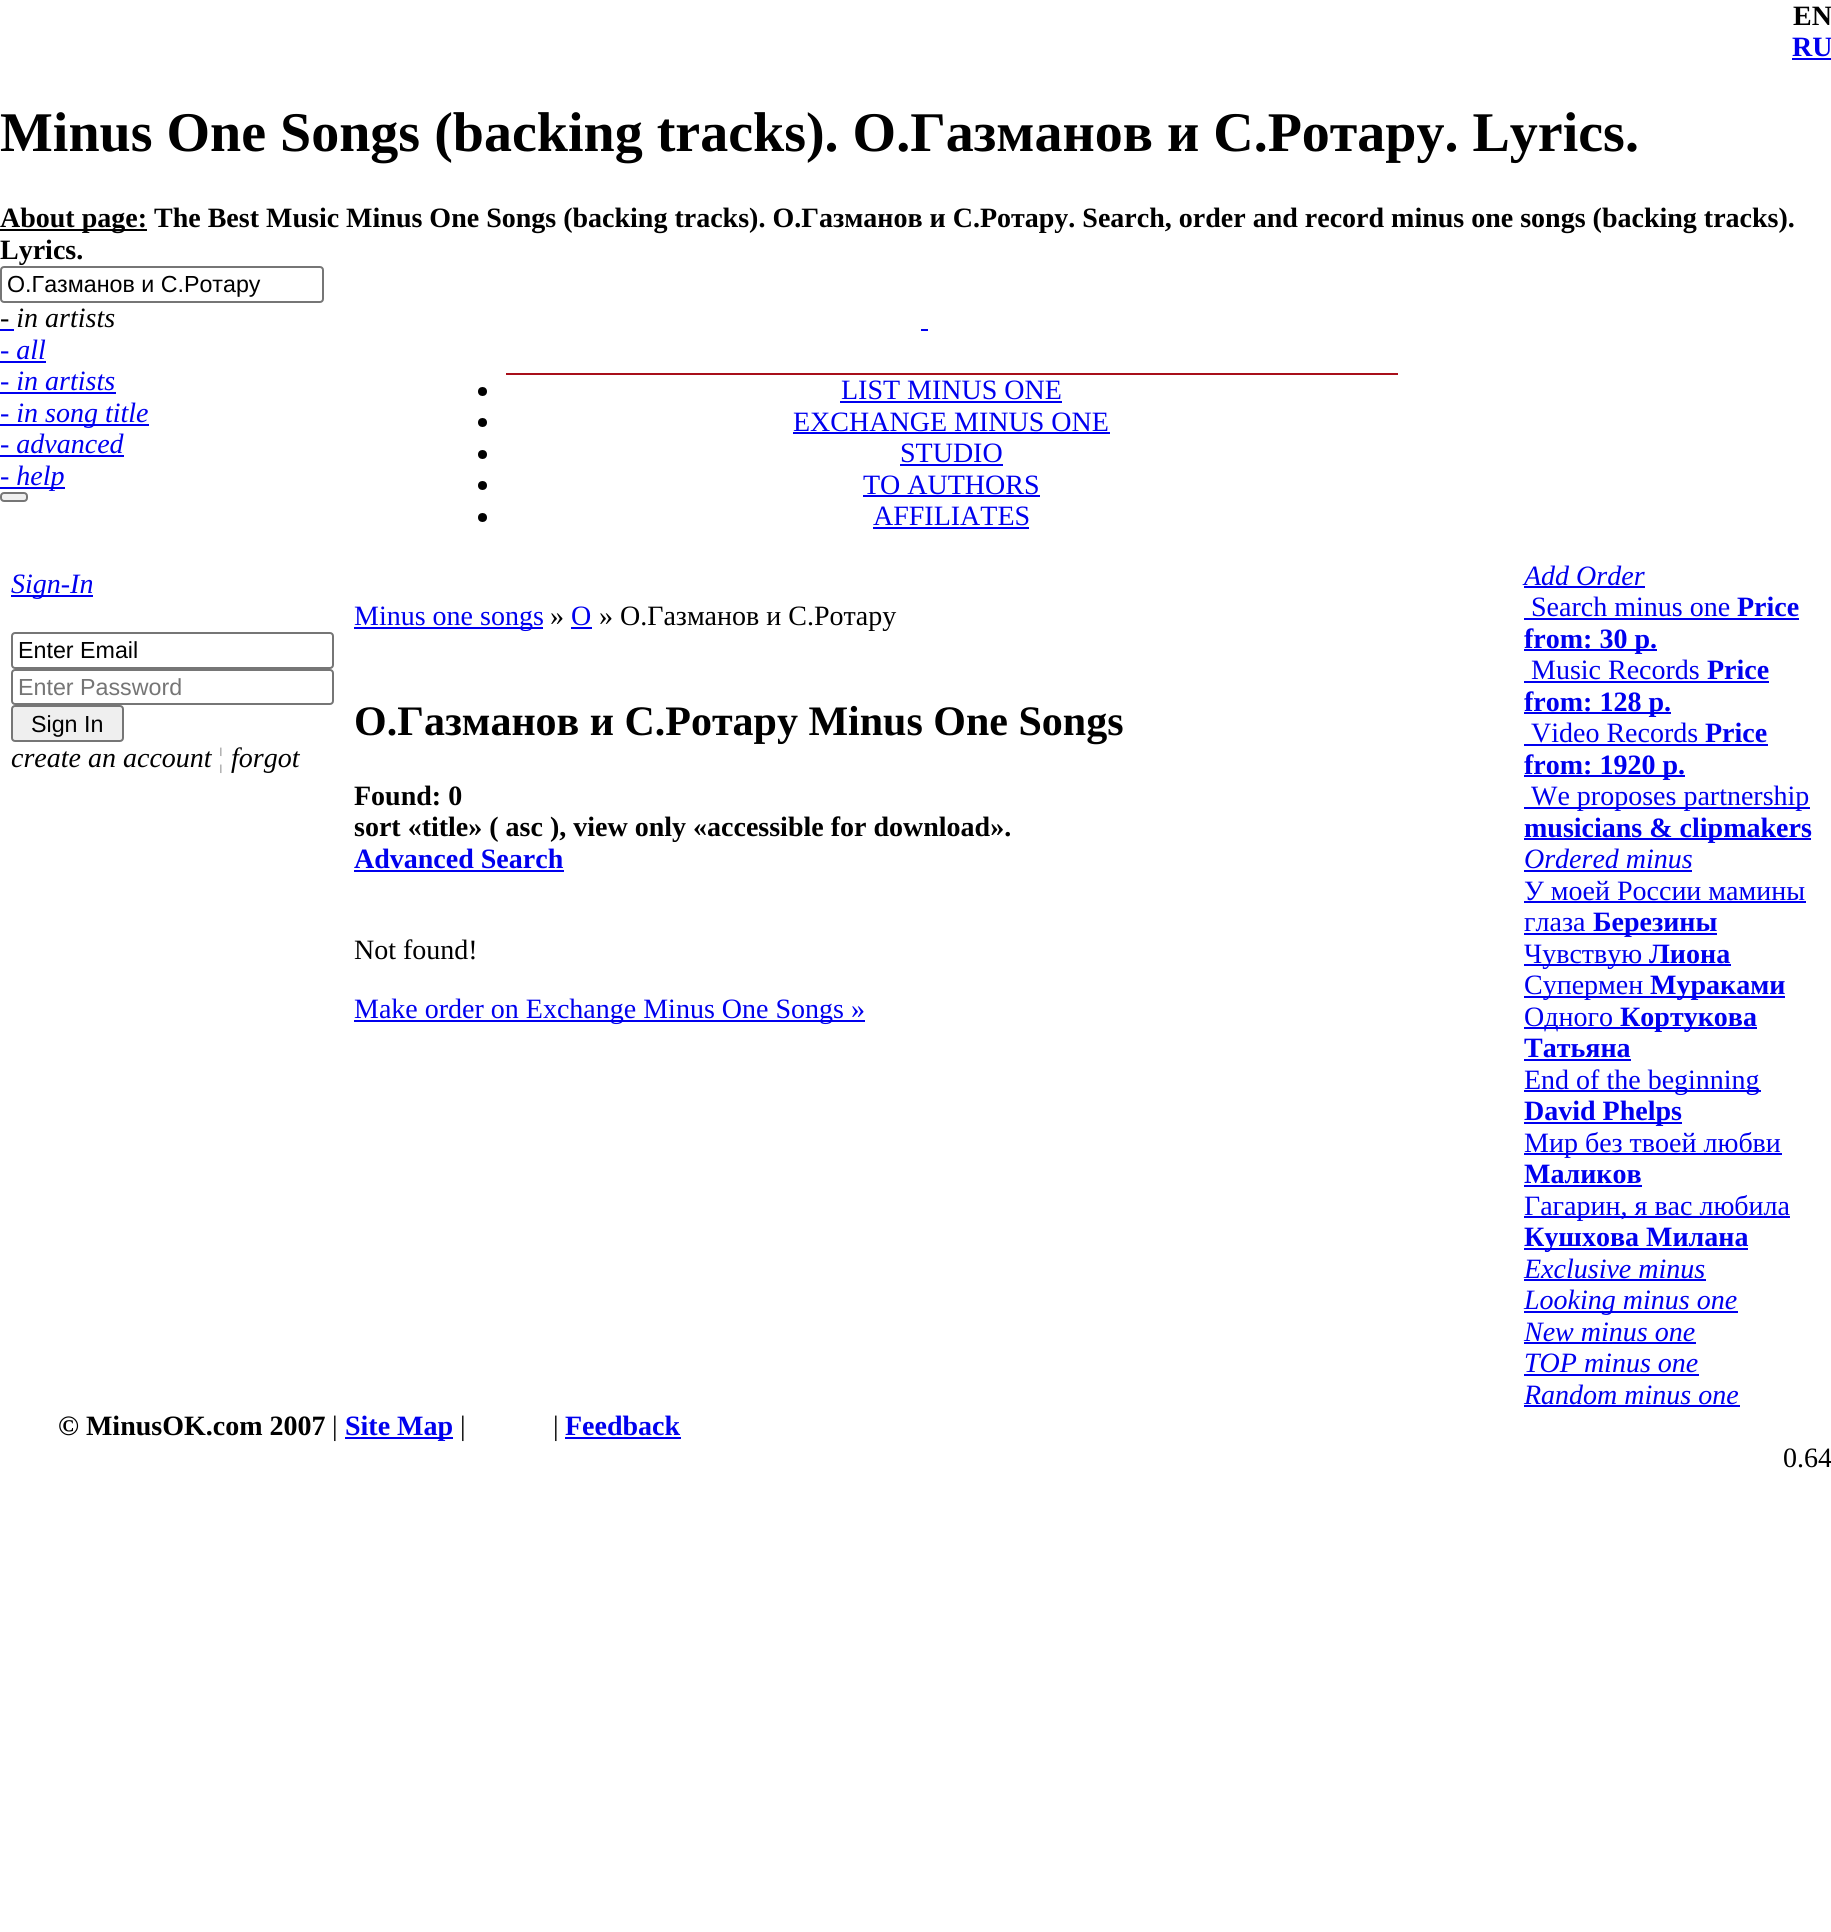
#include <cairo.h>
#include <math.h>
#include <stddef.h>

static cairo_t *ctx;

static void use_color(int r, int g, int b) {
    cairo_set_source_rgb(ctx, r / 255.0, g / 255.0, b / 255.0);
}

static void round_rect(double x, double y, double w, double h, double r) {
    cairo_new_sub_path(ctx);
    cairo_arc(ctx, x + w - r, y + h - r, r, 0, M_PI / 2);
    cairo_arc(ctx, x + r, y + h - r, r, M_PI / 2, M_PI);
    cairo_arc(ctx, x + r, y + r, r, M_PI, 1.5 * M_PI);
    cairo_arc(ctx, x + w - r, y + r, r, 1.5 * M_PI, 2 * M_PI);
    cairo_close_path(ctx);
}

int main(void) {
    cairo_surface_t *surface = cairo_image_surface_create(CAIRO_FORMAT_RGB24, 1831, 1932);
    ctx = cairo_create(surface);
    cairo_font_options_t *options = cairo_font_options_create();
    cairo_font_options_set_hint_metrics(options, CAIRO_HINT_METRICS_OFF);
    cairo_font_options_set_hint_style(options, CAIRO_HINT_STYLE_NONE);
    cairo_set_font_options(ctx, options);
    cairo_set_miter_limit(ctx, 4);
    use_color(255, 255, 255);
    cairo_paint(ctx);
    cairo_select_font_face(ctx, "Liberation Serif", CAIRO_FONT_SLANT_NORMAL, CAIRO_FONT_WEIGHT_BOLD);
    cairo_set_font_size(ctx, 28);
    use_color(0, 0, 0);
    cairo_move_to(ctx, 1793, 25);
    cairo_show_text(ctx, "EN");
    use_color(0, 0, 238);
    cairo_move_to(ctx, 1792, 56);
    cairo_show_text(ctx, "RU");
    cairo_rectangle(ctx, 1792, 58, 39, 2);
    cairo_fill(ctx);
    cairo_set_font_size(ctx, 56);
    use_color(0, 0, 0);
    cairo_move_to(ctx, 0, 151);
    cairo_show_text(ctx, "Minus One Songs (backing tracks). О.Газманов и С.Ротару. Lyrics.");
    cairo_rectangle(ctx, 0, 229, 147, 2);
    cairo_fill(ctx);
    cairo_set_font_size(ctx, 28);
    cairo_move_to(ctx, 0, 227);
    cairo_show_text(ctx, "About page: The Best Music Minus One Songs (backing tracks). О.Газманов и С.Ротару. Search, order and record minus one songs (backing tracks).");
    cairo_move_to(ctx, 0, 259);
    cairo_show_text(ctx, "Lyrics.");
    round_rect(1, 267, 322, 35, 3);
    use_color(118, 118, 118);
    cairo_stroke(ctx);
    cairo_select_font_face(ctx, "Liberation Sans", CAIRO_FONT_SLANT_NORMAL, CAIRO_FONT_WEIGHT_NORMAL);
    cairo_set_font_size(ctx, 23.25);
    use_color(0, 0, 0);
    cairo_move_to(ctx, 7, 292);
    cairo_show_text(ctx, "О.Газманов и С.Ротару");
    cairo_select_font_face(ctx, "Liberation Serif", CAIRO_FONT_SLANT_ITALIC, CAIRO_FONT_WEIGHT_NORMAL);
    cairo_set_font_size(ctx, 28);
    cairo_move_to(ctx, 0, 327);
    cairo_show_text(ctx, "- in artists");
    use_color(0, 0, 238);
    cairo_move_to(ctx, 0, 359);
    cairo_show_text(ctx, "- all");
    cairo_rectangle(ctx, 0, 361, 46, 2);
    cairo_fill(ctx);
    cairo_move_to(ctx, 0, 390);
    cairo_show_text(ctx, "- in artists");
    cairo_rectangle(ctx, 0, 392, 116, 2);
    cairo_fill(ctx);
    cairo_rectangle(ctx, 0, 424, 149, 2);
    cairo_fill(ctx);
    cairo_move_to(ctx, 0, 422);
    cairo_show_text(ctx, "- in song title");
    cairo_move_to(ctx, 0, 453);
    cairo_show_text(ctx, "- advanced");
    cairo_rectangle(ctx, 0, 455, 124, 2);
    cairo_fill(ctx);
    cairo_rectangle(ctx, 0, 487, 65, 2);
    cairo_fill(ctx);
    cairo_move_to(ctx, 0, 485);
    cairo_show_text(ctx, "- help");
    use_color(239, 239, 239);
    round_rect(1, 493, 26, 8, 3);
    cairo_fill_preserve(ctx);
    use_color(118, 118, 118);
    cairo_stroke(ctx);
    use_color(0, 0, 238);
    cairo_rectangle(ctx, 0, 329, 14, 2);
    cairo_fill(ctx);
    cairo_rectangle(ctx, 921, 329, 7, 2);
    cairo_fill(ctx);
    use_color(168, 15, 26);
    cairo_rectangle(ctx, 506, 373, 892, 2);
    cairo_fill(ctx);
    use_color(0, 0, 0);
    cairo_arc(ctx, 482.5, 391.5, 4.5, 0, 2 * M_PI);
    cairo_fill(ctx);
    cairo_select_font_face(ctx, "Liberation Serif", CAIRO_FONT_SLANT_NORMAL, CAIRO_FONT_WEIGHT_NORMAL);
    use_color(0, 0, 238);
    cairo_move_to(ctx, 841, 399);
    cairo_show_text(ctx, "LIST MINUS ONE");
    cairo_rectangle(ctx, 840, 401, 222, 2);
    cairo_fill(ctx);
    use_color(0, 0, 0);
    cairo_arc(ctx, 482.5, 422.5, 4.5, 0, 2 * M_PI);
    cairo_fill(ctx);
    use_color(0, 0, 238);
    cairo_move_to(ctx, 793, 431);
    cairo_show_text(ctx, "EXCHANGE MINUS ONE");
    cairo_rectangle(ctx, 793, 432, 317, 2);
    cairo_fill(ctx);
    use_color(0, 0, 0);
    cairo_arc(ctx, 482.5, 454.5, 4.5, 0, 2 * M_PI);
    cairo_fill(ctx);
    use_color(0, 0, 238);
    cairo_move_to(ctx, 900, 462);
    cairo_show_text(ctx, "STUDIO");
    cairo_rectangle(ctx, 900, 464, 103, 2);
    cairo_fill(ctx);
    use_color(0, 0, 0);
    cairo_arc(ctx, 482.5, 485.5, 4.5, 0, 2 * M_PI);
    cairo_fill(ctx);
    use_color(0, 0, 238);
    cairo_move_to(ctx, 863, 494);
    cairo_show_text(ctx, "TO AUTHORS");
    cairo_rectangle(ctx, 863, 495, 177, 2);
    cairo_fill(ctx);
    use_color(0, 0, 0);
    cairo_arc(ctx, 482.5, 517.5, 4.5, 0, 2 * M_PI);
    cairo_fill(ctx);
    use_color(0, 0, 238);
    cairo_move_to(ctx, 873, 525);
    cairo_show_text(ctx, "AFFILIATES");
    cairo_rectangle(ctx, 873, 527, 156, 2);
    cairo_fill(ctx);
    cairo_rectangle(ctx, 11, 595, 82, 2);
    cairo_fill(ctx);
    cairo_select_font_face(ctx, "Liberation Serif", CAIRO_FONT_SLANT_ITALIC, CAIRO_FONT_WEIGHT_NORMAL);
    cairo_move_to(ctx, 11, 593);
    cairo_show_text(ctx, "Sign-In");
    round_rect(12, 633, 321, 35, 3);
    use_color(118, 118, 118);
    cairo_stroke(ctx);
    cairo_select_font_face(ctx, "Liberation Sans", CAIRO_FONT_SLANT_NORMAL, CAIRO_FONT_WEIGHT_NORMAL);
    cairo_set_font_size(ctx, 23.25);
    use_color(0, 0, 0);
    cairo_move_to(ctx, 18, 658);
    cairo_show_text(ctx, "Enter Email");
    round_rect(12, 670, 321, 34, 3);
    use_color(118, 118, 118);
    cairo_stroke(ctx);
    use_color(117, 117, 117);
    cairo_move_to(ctx, 18, 695);
    cairo_show_text(ctx, "Enter Password");
    use_color(239, 239, 239);
    round_rect(12, 706, 111, 35, 3);
    cairo_fill_preserve(ctx);
    use_color(118, 118, 118);
    cairo_stroke(ctx);
    use_color(0, 0, 0);
    cairo_move_to(ctx, 31, 732);
    cairo_show_text(ctx, "Sign In");
    cairo_select_font_face(ctx, "Liberation Serif", CAIRO_FONT_SLANT_ITALIC, CAIRO_FONT_WEIGHT_NORMAL);
    cairo_set_font_size(ctx, 28);
    cairo_move_to(ctx, 11, 767);
    cairo_show_text(ctx, "create an account");
    cairo_select_font_face(ctx, "Liberation Serif", CAIRO_FONT_SLANT_NORMAL, CAIRO_FONT_WEIGHT_NORMAL);
    use_color(170, 170, 170);
    cairo_move_to(ctx, 218, 767);
    cairo_show_text(ctx, "¦");
    cairo_select_font_face(ctx, "Liberation Serif", CAIRO_FONT_SLANT_ITALIC, CAIRO_FONT_WEIGHT_NORMAL);
    use_color(0, 0, 0);
    cairo_move_to(ctx, 231, 767);
    cairo_show_text(ctx, "forgot");
    use_color(0, 0, 238);
    cairo_rectangle(ctx, 354, 627, 189, 2);
    cairo_fill(ctx);
    cairo_select_font_face(ctx, "Liberation Serif", CAIRO_FONT_SLANT_NORMAL, CAIRO_FONT_WEIGHT_NORMAL);
    cairo_move_to(ctx, 354, 625);
    cairo_show_text(ctx, "Minus one songs");
    use_color(0, 0, 0);
    cairo_move_to(ctx, 550, 625);
    cairo_show_text(ctx, "»");
    use_color(0, 0, 238);
    cairo_move_to(ctx, 571, 625);
    cairo_show_text(ctx, "О");
    cairo_rectangle(ctx, 571, 627, 21, 2);
    cairo_fill(ctx);
    use_color(0, 0, 0);
    cairo_move_to(ctx, 599, 625);
    cairo_show_text(ctx, "» О.Газманов и С.Ротару");
    cairo_select_font_face(ctx, "Liberation Serif", CAIRO_FONT_SLANT_NORMAL, CAIRO_FONT_WEIGHT_BOLD);
    cairo_set_font_size(ctx, 42);
    cairo_move_to(ctx, 354, 735);
    cairo_show_text(ctx, "О.Газманов и С.Ротару Minus One Songs");
    cairo_set_font_size(ctx, 28);
    cairo_move_to(ctx, 354, 805);
    cairo_show_text(ctx, "Found: 0");
    cairo_move_to(ctx, 354, 836);
    cairo_show_text(ctx, "sort «title» ( asc ), view only «accessible for download».");
    use_color(0, 0, 238);
    cairo_move_to(ctx, 354, 868);
    cairo_show_text(ctx, "Advanced Search");
    cairo_rectangle(ctx, 354, 870, 210, 2);
    cairo_fill(ctx);
    cairo_select_font_face(ctx, "Liberation Serif", CAIRO_FONT_SLANT_NORMAL, CAIRO_FONT_WEIGHT_NORMAL);
    use_color(0, 0, 0);
    cairo_move_to(ctx, 354, 959);
    cairo_show_text(ctx, "Not found!");
    use_color(0, 0, 238);
    cairo_rectangle(ctx, 354, 1020, 511, 2);
    cairo_fill(ctx);
    cairo_move_to(ctx, 354, 1018);
    cairo_show_text(ctx, "Make order on Exchange Minus One Songs »");
    cairo_select_font_face(ctx, "Liberation Serif", CAIRO_FONT_SLANT_ITALIC, CAIRO_FONT_WEIGHT_NORMAL);
    cairo_move_to(ctx, 1524, 585);
    cairo_show_text(ctx, "Add Order");
    cairo_rectangle(ctx, 1524, 586, 121, 2);
    cairo_fill(ctx);
    cairo_select_font_face(ctx, "Liberation Serif", CAIRO_FONT_SLANT_NORMAL, CAIRO_FONT_WEIGHT_NORMAL);
    cairo_move_to(ctx, 1531, 616);
    cairo_show_text(ctx, "Search minus one");
    cairo_rectangle(ctx, 1524, 618, 275, 2);
    cairo_fill(ctx);
    cairo_select_font_face(ctx, "Liberation Serif", CAIRO_FONT_SLANT_NORMAL, CAIRO_FONT_WEIGHT_BOLD);
    cairo_move_to(ctx, 1737, 616);
    cairo_show_text(ctx, "Price");
    cairo_rectangle(ctx, 1524, 649, 133, 2);
    cairo_fill(ctx);
    cairo_move_to(ctx, 1524, 648);
    cairo_show_text(ctx, "from: 30 р.");
    cairo_select_font_face(ctx, "Liberation Serif", CAIRO_FONT_SLANT_NORMAL, CAIRO_FONT_WEIGHT_NORMAL);
    cairo_move_to(ctx, 1531, 679);
    cairo_show_text(ctx, "Music Records");
    cairo_rectangle(ctx, 1524, 681, 245, 2);
    cairo_fill(ctx);
    cairo_select_font_face(ctx, "Liberation Serif", CAIRO_FONT_SLANT_NORMAL, CAIRO_FONT_WEIGHT_BOLD);
    cairo_move_to(ctx, 1707, 679);
    cairo_show_text(ctx, "Price");
    cairo_rectangle(ctx, 1524, 712, 147, 2);
    cairo_fill(ctx);
    cairo_move_to(ctx, 1524, 711);
    cairo_show_text(ctx, "from: 128 р.");
    cairo_select_font_face(ctx, "Liberation Serif", CAIRO_FONT_SLANT_NORMAL, CAIRO_FONT_WEIGHT_NORMAL);
    cairo_move_to(ctx, 1531, 742);
    cairo_show_text(ctx, "Video Records");
    cairo_rectangle(ctx, 1524, 744, 244, 2);
    cairo_fill(ctx);
    cairo_select_font_face(ctx, "Liberation Serif", CAIRO_FONT_SLANT_NORMAL, CAIRO_FONT_WEIGHT_BOLD);
    cairo_move_to(ctx, 1705, 742);
    cairo_show_text(ctx, "Price");
    cairo_rectangle(ctx, 1524, 775, 161, 2);
    cairo_fill(ctx);
    cairo_move_to(ctx, 1524, 774);
    cairo_show_text(ctx, "from: 1920 р.");
    cairo_rectangle(ctx, 1524, 807, 286, 2);
    cairo_fill(ctx);
    cairo_select_font_face(ctx, "Liberation Serif", CAIRO_FONT_SLANT_NORMAL, CAIRO_FONT_WEIGHT_NORMAL);
    cairo_move_to(ctx, 1531, 805);
    cairo_show_text(ctx, "We proposes partnership");
    cairo_rectangle(ctx, 1524, 838, 287, 2);
    cairo_fill(ctx);
    cairo_select_font_face(ctx, "Liberation Serif", CAIRO_FONT_SLANT_NORMAL, CAIRO_FONT_WEIGHT_BOLD);
    cairo_move_to(ctx, 1524, 837);
    cairo_show_text(ctx, "musicians & clipmakers");
    cairo_select_font_face(ctx, "Liberation Serif", CAIRO_FONT_SLANT_ITALIC, CAIRO_FONT_WEIGHT_NORMAL);
    cairo_move_to(ctx, 1524, 868);
    cairo_show_text(ctx, "Ordered minus");
    cairo_rectangle(ctx, 1524, 870, 168, 2);
    cairo_fill(ctx);
    cairo_select_font_face(ctx, "Liberation Serif", CAIRO_FONT_SLANT_NORMAL, CAIRO_FONT_WEIGHT_NORMAL);
    cairo_move_to(ctx, 1524, 900);
    cairo_show_text(ctx, "У моей России мамины");
    cairo_rectangle(ctx, 1524, 901, 282, 2);
    cairo_fill(ctx);
    cairo_move_to(ctx, 1524, 931);
    cairo_show_text(ctx, "глаза");
    cairo_rectangle(ctx, 1524, 933, 193, 2);
    cairo_fill(ctx);
    cairo_select_font_face(ctx, "Liberation Serif", CAIRO_FONT_SLANT_NORMAL, CAIRO_FONT_WEIGHT_BOLD);
    cairo_move_to(ctx, 1593, 931);
    cairo_show_text(ctx, "Березины");
    cairo_rectangle(ctx, 1524, 964, 207, 2);
    cairo_fill(ctx);
    cairo_select_font_face(ctx, "Liberation Serif", CAIRO_FONT_SLANT_NORMAL, CAIRO_FONT_WEIGHT_NORMAL);
    cairo_move_to(ctx, 1524, 963);
    cairo_show_text(ctx, "Чувствую");
    cairo_select_font_face(ctx, "Liberation Serif", CAIRO_FONT_SLANT_NORMAL, CAIRO_FONT_WEIGHT_BOLD);
    cairo_move_to(ctx, 1649, 963);
    cairo_show_text(ctx, "Лиона");
    cairo_rectangle(ctx, 1524, 996, 261, 2);
    cairo_fill(ctx);
    cairo_select_font_face(ctx, "Liberation Serif", CAIRO_FONT_SLANT_NORMAL, CAIRO_FONT_WEIGHT_NORMAL);
    cairo_move_to(ctx, 1524, 994);
    cairo_show_text(ctx, "Супермен");
    cairo_select_font_face(ctx, "Liberation Serif", CAIRO_FONT_SLANT_NORMAL, CAIRO_FONT_WEIGHT_BOLD);
    cairo_move_to(ctx, 1650, 994);
    cairo_show_text(ctx, "Мураками");
    cairo_rectangle(ctx, 1524, 1027, 233, 2);
    cairo_fill(ctx);
    cairo_select_font_face(ctx, "Liberation Serif", CAIRO_FONT_SLANT_NORMAL, CAIRO_FONT_WEIGHT_NORMAL);
    cairo_move_to(ctx, 1524, 1026);
    cairo_show_text(ctx, "Одного");
    cairo_select_font_face(ctx, "Liberation Serif", CAIRO_FONT_SLANT_NORMAL, CAIRO_FONT_WEIGHT_BOLD);
    cairo_move_to(ctx, 1620, 1026);
    cairo_show_text(ctx, "Кортукова");
    cairo_move_to(ctx, 1524, 1057);
    cairo_show_text(ctx, "Татьяна");
    cairo_rectangle(ctx, 1524, 1059, 107, 2);
    cairo_fill(ctx);
    cairo_rectangle(ctx, 1524, 1090, 237, 2);
    cairo_fill(ctx);
    cairo_select_font_face(ctx, "Liberation Serif", CAIRO_FONT_SLANT_NORMAL, CAIRO_FONT_WEIGHT_NORMAL);
    cairo_move_to(ctx, 1524, 1089);
    cairo_show_text(ctx, "End of the beginning");
    cairo_rectangle(ctx, 1524, 1122, 158, 2);
    cairo_fill(ctx);
    cairo_select_font_face(ctx, "Liberation Serif", CAIRO_FONT_SLANT_NORMAL, CAIRO_FONT_WEIGHT_BOLD);
    cairo_move_to(ctx, 1524, 1120);
    cairo_show_text(ctx, "David Phelps");
    cairo_rectangle(ctx, 1524, 1153, 258, 2);
    cairo_fill(ctx);
    cairo_select_font_face(ctx, "Liberation Serif", CAIRO_FONT_SLANT_NORMAL, CAIRO_FONT_WEIGHT_NORMAL);
    cairo_move_to(ctx, 1524, 1152);
    cairo_show_text(ctx, "Мир без твоей любви");
    cairo_select_font_face(ctx, "Liberation Serif", CAIRO_FONT_SLANT_NORMAL, CAIRO_FONT_WEIGHT_BOLD);
    cairo_move_to(ctx, 1524, 1183);
    cairo_show_text(ctx, "Маликов");
    cairo_rectangle(ctx, 1524, 1185, 118, 2);
    cairo_fill(ctx);
    cairo_rectangle(ctx, 1524, 1216, 266, 2);
    cairo_fill(ctx);
    cairo_select_font_face(ctx, "Liberation Serif", CAIRO_FONT_SLANT_NORMAL, CAIRO_FONT_WEIGHT_NORMAL);
    cairo_move_to(ctx, 1524, 1215);
    cairo_show_text(ctx, "Гагарин, я вас любила");
    cairo_rectangle(ctx, 1524, 1248, 224, 2);
    cairo_fill(ctx);
    cairo_select_font_face(ctx, "Liberation Serif", CAIRO_FONT_SLANT_NORMAL, CAIRO_FONT_WEIGHT_BOLD);
    cairo_move_to(ctx, 1524, 1246);
    cairo_show_text(ctx, "Кушхова Милана");
    cairo_select_font_face(ctx, "Liberation Serif", CAIRO_FONT_SLANT_ITALIC, CAIRO_FONT_WEIGHT_NORMAL);
    cairo_move_to(ctx, 1524, 1278);
    cairo_show_text(ctx, "Exclusive minus");
    cairo_rectangle(ctx, 1524, 1279, 182, 2);
    cairo_fill(ctx);
    cairo_rectangle(ctx, 1524, 1311, 214, 2);
    cairo_fill(ctx);
    cairo_move_to(ctx, 1524, 1309);
    cairo_show_text(ctx, "Looking minus one");
    cairo_move_to(ctx, 1524, 1341);
    cairo_show_text(ctx, "New minus one");
    cairo_rectangle(ctx, 1524, 1342, 172, 2);
    cairo_fill(ctx);
    cairo_move_to(ctx, 1524, 1372);
    cairo_show_text(ctx, "TOP minus one");
    cairo_rectangle(ctx, 1524, 1374, 175, 2);
    cairo_fill(ctx);
    cairo_move_to(ctx, 1524, 1404);
    cairo_show_text(ctx, "Random minus one");
    cairo_rectangle(ctx, 1524, 1405, 216, 2);
    cairo_fill(ctx);
    cairo_select_font_face(ctx, "Liberation Serif", CAIRO_FONT_SLANT_NORMAL, CAIRO_FONT_WEIGHT_BOLD);
    use_color(0, 0, 0);
    cairo_move_to(ctx, 58, 1435);
    cairo_show_text(ctx, "© MinusOK.com 2007");
    cairo_select_font_face(ctx, "Liberation Serif", CAIRO_FONT_SLANT_NORMAL, CAIRO_FONT_WEIGHT_NORMAL);
    cairo_move_to(ctx, 332, 1435);
    cairo_show_text(ctx, "|");
    use_color(0, 0, 238);
    cairo_rectangle(ctx, 345, 1437, 108, 2);
    cairo_fill(ctx);
    cairo_select_font_face(ctx, "Liberation Serif", CAIRO_FONT_SLANT_NORMAL, CAIRO_FONT_WEIGHT_BOLD);
    cairo_move_to(ctx, 345, 1435);
    cairo_show_text(ctx, "Site Map");
    cairo_select_font_face(ctx, "Liberation Serif", CAIRO_FONT_SLANT_NORMAL, CAIRO_FONT_WEIGHT_NORMAL);
    use_color(0, 0, 0);
    cairo_move_to(ctx, 460, 1435);
    cairo_show_text(ctx, "|");
    cairo_move_to(ctx, 553, 1435);
    cairo_show_text(ctx, "|");
    cairo_select_font_face(ctx, "Liberation Serif", CAIRO_FONT_SLANT_NORMAL, CAIRO_FONT_WEIGHT_BOLD);
    use_color(0, 0, 238);
    cairo_move_to(ctx, 565, 1435);
    cairo_show_text(ctx, "Feedback");
    cairo_rectangle(ctx, 565, 1437, 116, 2);
    cairo_fill(ctx);
    cairo_select_font_face(ctx, "Liberation Serif", CAIRO_FONT_SLANT_NORMAL, CAIRO_FONT_WEIGHT_NORMAL);
    use_color(0, 0, 0);
    cairo_move_to(ctx, 1783, 1467);
    cairo_show_text(ctx, "0.64");
    cairo_surface_write_to_png(surface, "result.png");
    cairo_font_options_destroy(options);
    cairo_destroy(ctx);
    cairo_surface_destroy(surface);
    return 0;
}
